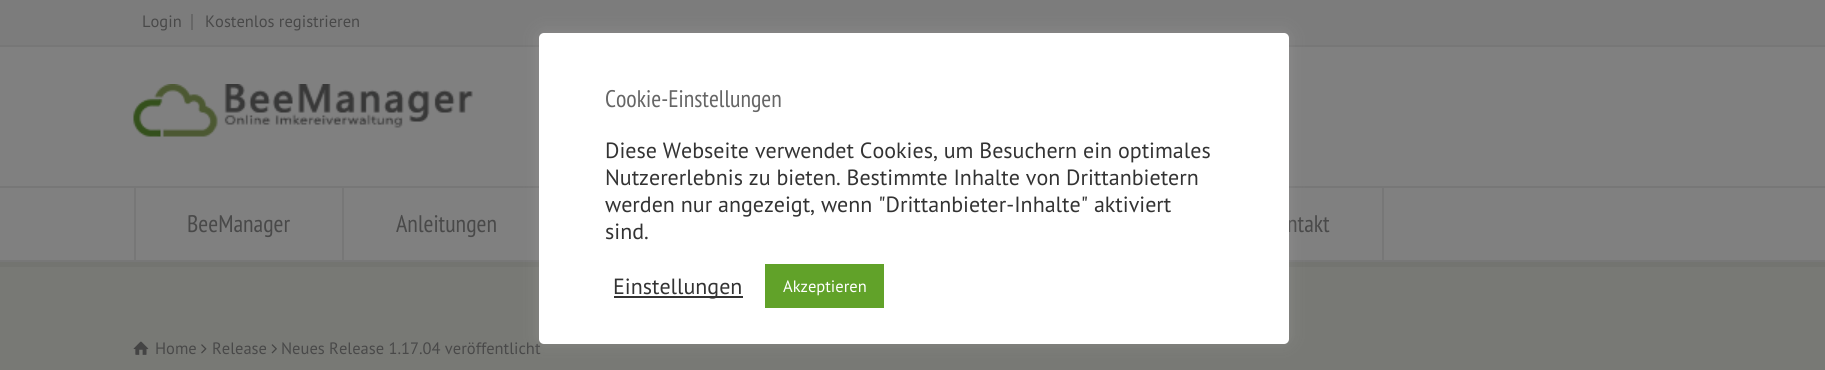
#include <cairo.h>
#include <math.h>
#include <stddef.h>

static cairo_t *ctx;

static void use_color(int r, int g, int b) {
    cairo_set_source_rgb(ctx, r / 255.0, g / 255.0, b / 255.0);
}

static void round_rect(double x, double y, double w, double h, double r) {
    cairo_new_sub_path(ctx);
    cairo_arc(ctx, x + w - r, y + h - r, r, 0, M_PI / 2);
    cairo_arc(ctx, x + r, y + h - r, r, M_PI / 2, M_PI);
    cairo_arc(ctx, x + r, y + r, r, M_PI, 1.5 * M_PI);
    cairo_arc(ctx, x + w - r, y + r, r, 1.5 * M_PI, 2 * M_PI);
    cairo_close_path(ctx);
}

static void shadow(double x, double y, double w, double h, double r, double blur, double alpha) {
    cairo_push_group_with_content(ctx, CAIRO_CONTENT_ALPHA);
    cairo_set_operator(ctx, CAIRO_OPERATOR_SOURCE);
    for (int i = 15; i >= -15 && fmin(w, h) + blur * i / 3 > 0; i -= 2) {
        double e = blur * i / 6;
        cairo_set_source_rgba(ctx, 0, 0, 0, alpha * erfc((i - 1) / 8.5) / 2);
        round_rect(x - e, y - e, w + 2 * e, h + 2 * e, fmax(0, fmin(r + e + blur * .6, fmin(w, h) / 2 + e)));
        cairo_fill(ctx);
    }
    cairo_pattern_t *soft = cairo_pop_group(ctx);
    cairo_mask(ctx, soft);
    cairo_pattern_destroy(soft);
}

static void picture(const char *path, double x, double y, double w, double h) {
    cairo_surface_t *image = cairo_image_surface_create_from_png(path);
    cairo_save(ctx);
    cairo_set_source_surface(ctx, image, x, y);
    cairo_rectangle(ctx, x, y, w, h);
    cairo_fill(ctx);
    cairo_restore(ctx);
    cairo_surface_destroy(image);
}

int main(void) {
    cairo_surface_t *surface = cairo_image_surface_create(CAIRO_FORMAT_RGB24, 1825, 370);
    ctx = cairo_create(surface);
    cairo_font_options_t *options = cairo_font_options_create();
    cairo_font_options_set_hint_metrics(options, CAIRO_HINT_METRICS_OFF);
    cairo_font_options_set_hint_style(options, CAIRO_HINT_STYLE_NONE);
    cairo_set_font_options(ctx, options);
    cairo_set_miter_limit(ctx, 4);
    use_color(128, 128, 128);
    cairo_paint(ctx);
    use_color(124, 124, 124);
    cairo_rectangle(ctx, 0, 0, 1825, 45);
    cairo_fill(ctx);
    use_color(119, 119, 119);
    cairo_rectangle(ctx, 0, 45, 1825, 2);
    cairo_fill(ctx);
    use_color(103, 103, 103);
    cairo_rectangle(ctx, 191, 14, 2, 16);
    cairo_fill(ctx);
    cairo_select_font_face(ctx, "PT Sans", CAIRO_FONT_SLANT_NORMAL, CAIRO_FONT_WEIGHT_NORMAL);
    cairo_set_font_size(ctx, 16.5);
    use_color(73, 73, 73);
    cairo_move_to(ctx, 142, 27);
    cairo_show_text(ctx, "Login");
    cairo_move_to(ctx, 205, 27);
    cairo_show_text(ctx, "Kostenlos registrieren");
    picture("img1.png", 133, 84, 340, 53);
    use_color(115, 116, 112);
    cairo_new_path(ctx);
    cairo_move_to(ctx, 0, 261);
    cairo_line_to(ctx, 0, 267);
    cairo_line_to(ctx, 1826, 267);
    cairo_line_to(ctx, 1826, 192);
    cairo_line_to(ctx, 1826, 261);
    cairo_close_path(ctx);
    cairo_fill(ctx);
    use_color(119, 119, 119);
    cairo_rectangle(ctx, 0, 186, 1825, 2);
    cairo_fill(ctx);
    cairo_rectangle(ctx, 0, 260, 1825, 2);
    cairo_fill(ctx);
    cairo_rectangle(ctx, 342, 188, 2, 72);
    cairo_fill(ctx);
    cairo_rectangle(ctx, 134, 188, 2, 72);
    cairo_fill(ctx);
    cairo_select_font_face(ctx, "PT Sans Narrow", CAIRO_FONT_SLANT_NORMAL, CAIRO_FONT_WEIGHT_NORMAL);
    cairo_set_font_size(ctx, 24);
    use_color(73, 73, 73);
    cairo_move_to(ctx, 187, 232);
    cairo_show_text(ctx, "BeeManager");
    cairo_move_to(ctx, 396, 232);
    cairo_show_text(ctx, "Anleitungen");
    use_color(119, 119, 119);
    cairo_rectangle(ctx, 1382, 188, 2, 72);
    cairo_fill(ctx);
    use_color(73, 73, 73);
    cairo_move_to(ctx, 1287, 232);
    cairo_show_text(ctx, "ntakt");
    use_color(120, 121, 117);
    cairo_rectangle(ctx, 0, 267, 1825, 103);
    cairo_fill(ctx);
    picture("img2.png", 133, 341, 16, 14);
    cairo_select_font_face(ctx, "PT Sans", CAIRO_FONT_SLANT_NORMAL, CAIRO_FONT_WEIGHT_NORMAL);
    cairo_set_font_size(ctx, 16.5);
    use_color(73, 73, 73);
    cairo_move_to(ctx, 155, 354);
    cairo_show_text(ctx, "Home");
    picture("img3.png", 201, 344, 6, 10);
    cairo_move_to(ctx, 212, 354);
    cairo_show_text(ctx, "Release");
    picture("img4.png", 271, 344, 6, 10);
    cairo_move_to(ctx, 281, 354);
    cairo_show_text(ctx, "Neues Release 1.17.04 veröffentlicht");
    use_color(172, 171, 171);
    shadow(539, 32, 750, 310, 5, 7.5, 0.3);
    use_color(255, 255, 255);
    round_rect(539, 33, 750, 311, 5);
    cairo_fill(ctx);
    cairo_select_font_face(ctx, "PT Sans Narrow", CAIRO_FONT_SLANT_NORMAL, CAIRO_FONT_WEIGHT_NORMAL);
    cairo_set_font_size(ctx, 24);
    use_color(102, 102, 102);
    cairo_move_to(ctx, 605, 107);
    cairo_show_text(ctx, "Cookie-Einstellungen");
    cairo_select_font_face(ctx, "PT Sans", CAIRO_FONT_SLANT_NORMAL, CAIRO_FONT_WEIGHT_NORMAL);
    cairo_set_font_size(ctx, 22);
    use_color(51, 51, 51);
    cairo_move_to(ctx, 605, 158);
    cairo_show_text(ctx, "Diese Webseite verwendet Cookies, um Besuchern ein optimales");
    cairo_move_to(ctx, 605, 185);
    cairo_show_text(ctx, "Nutzererlebnis zu bieten. Bestimmte Inhalte von Drittanbietern");
    cairo_move_to(ctx, 605, 212);
    cairo_show_text(ctx, "werden nur angezeigt, wenn \"Drittanbieter-Inhalte\" aktiviert");
    cairo_move_to(ctx, 605, 239);
    cairo_show_text(ctx, "sind.");
    cairo_rectangle(ctx, 614, 296, 129, 2);
    cairo_fill(ctx);
    cairo_move_to(ctx, 613, 294);
    cairo_show_text(ctx, "Einstellungen");
    use_color(97, 162, 41);
    cairo_rectangle(ctx, 765, 264, 119, 44);
    cairo_fill(ctx);
    cairo_set_font_size(ctx, 16.5);
    use_color(255, 255, 255);
    cairo_move_to(ctx, 783, 292);
    cairo_show_text(ctx, "Akzeptieren");
    cairo_surface_write_to_png(surface, "result.png");
    cairo_font_options_destroy(options);
    cairo_destroy(ctx);
    cairo_surface_destroy(surface);
    return 0;
}
